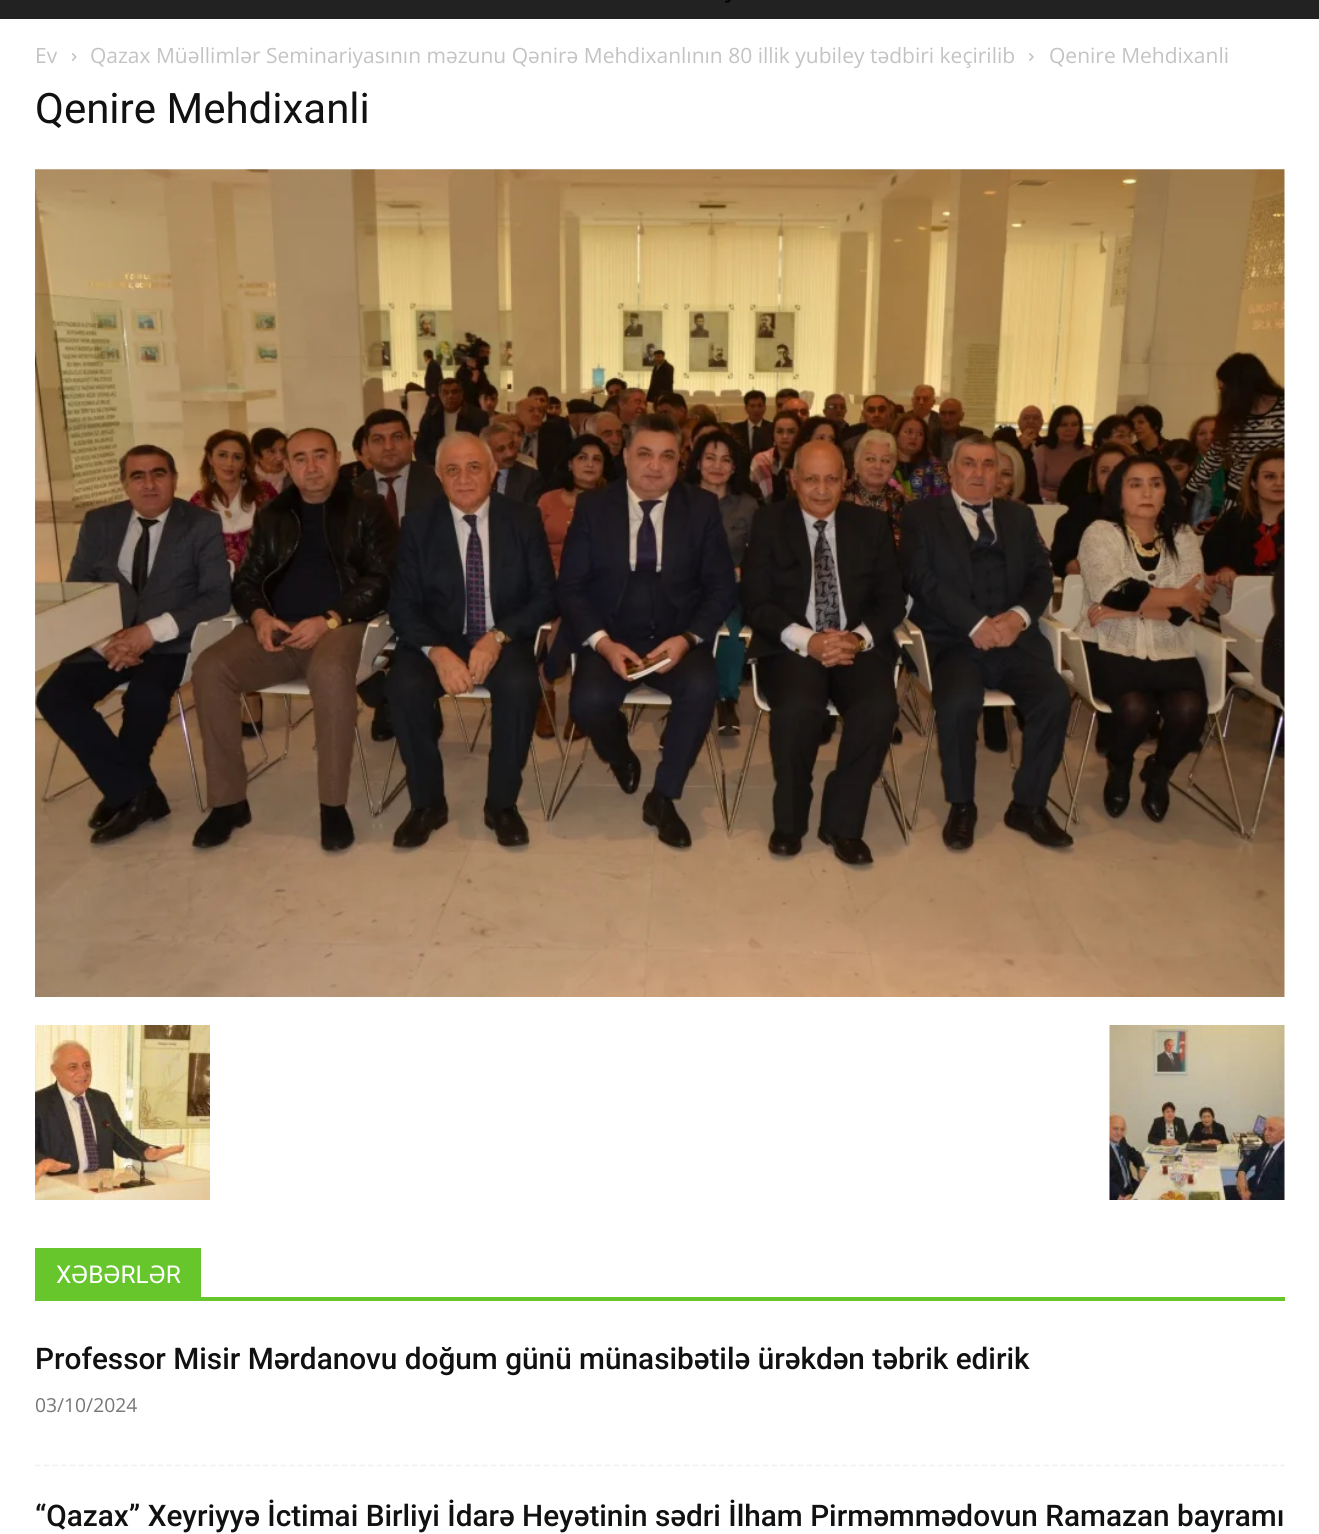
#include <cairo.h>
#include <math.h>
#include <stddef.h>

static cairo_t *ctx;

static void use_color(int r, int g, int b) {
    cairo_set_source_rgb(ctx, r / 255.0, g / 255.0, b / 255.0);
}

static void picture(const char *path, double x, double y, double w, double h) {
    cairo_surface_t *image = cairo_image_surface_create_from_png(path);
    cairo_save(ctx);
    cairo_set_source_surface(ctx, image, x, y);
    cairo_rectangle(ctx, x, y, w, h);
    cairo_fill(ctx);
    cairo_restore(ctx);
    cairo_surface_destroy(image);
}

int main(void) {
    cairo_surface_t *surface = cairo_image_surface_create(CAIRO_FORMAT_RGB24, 1319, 1534);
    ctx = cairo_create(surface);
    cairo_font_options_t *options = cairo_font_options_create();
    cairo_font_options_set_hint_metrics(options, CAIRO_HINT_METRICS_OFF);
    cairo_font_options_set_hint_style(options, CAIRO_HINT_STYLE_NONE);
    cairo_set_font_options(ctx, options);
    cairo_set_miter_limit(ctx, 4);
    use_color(255, 255, 255);
    cairo_paint(ctx);
    use_color(34, 34, 34);
    cairo_rectangle(ctx, 0, 0, 1319, 19);
    cairo_fill(ctx);
    picture("img1.png", 725, 0, 6, 3);
    cairo_select_font_face(ctx, "Open Sans", CAIRO_FONT_SLANT_NORMAL, CAIRO_FONT_WEIGHT_NORMAL);
    cairo_set_font_size(ctx, 21);
    use_color(195, 195, 195);
    cairo_move_to(ctx, 35, 63);
    cairo_show_text(ctx, "Ev");
    picture("img2.png", 71, 53, 6, 8);
    cairo_move_to(ctx, 90, 63);
    cairo_show_text(ctx, "Qazax Müəllimlər Seminariyasının məzunu Qənirə Mehdixanlının 80 illik yubiley tədbiri keçirilib");
    picture("img3.png", 1029, 53, 5, 8);
    cairo_move_to(ctx, 1049, 63);
    cairo_show_text(ctx, "Qenire Mehdixanli");
    cairo_select_font_face(ctx, "Roboto", CAIRO_FONT_SLANT_NORMAL, CAIRO_FONT_WEIGHT_NORMAL);
    cairo_set_font_size(ctx, 42);
    use_color(17, 17, 17);
    cairo_move_to(ctx, 35, 123);
    cairo_show_text(ctx, "Qenire Mehdixanli");
    picture("img4.png", 35, 169, 1250, 828);
    picture("img5.png", 35, 1025, 175, 175);
    picture("img6.png", 1109, 1025, 176, 175);
    use_color(104, 198, 45);
    cairo_rectangle(ctx, 35, 1297, 1250, 4);
    cairo_fill(ctx);
    cairo_rectangle(ctx, 35, 1248, 166, 49);
    cairo_fill(ctx);
    cairo_set_font_size(ctx, 24.5);
    use_color(255, 255, 255);
    cairo_move_to(ctx, 56, 1283);
    cairo_show_text(ctx, "XƏBƏRLƏR");
    cairo_new_path(ctx);
    cairo_move_to(ctx, 35, 1465.5);
    cairo_line_to(ctx, 1284.5, 1465.5);
    use_color(242, 242, 242);
    cairo_set_line_width(ctx, 1.8);
    cairo_set_dash(ctx, (double[]){5.25, 3.52}, 2, 0);
    cairo_stroke(ctx);
    cairo_select_font_face(ctx, "Roboto Medium", CAIRO_FONT_SLANT_NORMAL, CAIRO_FONT_WEIGHT_NORMAL);
    cairo_set_font_size(ctx, 29.75);
    use_color(17, 17, 17);
    cairo_move_to(ctx, 35, 1369);
    cairo_show_text(ctx, "Professor Misir Mərdanovu doğum günü münasibətilə ürəkdən təbrik edirik");
    cairo_select_font_face(ctx, "Open Sans", CAIRO_FONT_SLANT_NORMAL, CAIRO_FONT_WEIGHT_NORMAL);
    cairo_set_font_size(ctx, 19.25);
    use_color(118, 118, 118);
    cairo_move_to(ctx, 35, 1412);
    cairo_show_text(ctx, "03/10/2024");
    cairo_select_font_face(ctx, "Roboto Medium", CAIRO_FONT_SLANT_NORMAL, CAIRO_FONT_WEIGHT_NORMAL);
    cairo_set_font_size(ctx, 29.75);
    use_color(17, 17, 17);
    cairo_move_to(ctx, 35, 1526);
    cairo_show_text(ctx, "“Qazax” Xeyriyyə İctimai Birliyi İdarə Heyətinin sədri İlham Pirməmmədovun Ramazan bayramı");
    cairo_surface_write_to_png(surface, "result.png");
    cairo_font_options_destroy(options);
    cairo_destroy(ctx);
    cairo_surface_destroy(surface);
    return 0;
}
